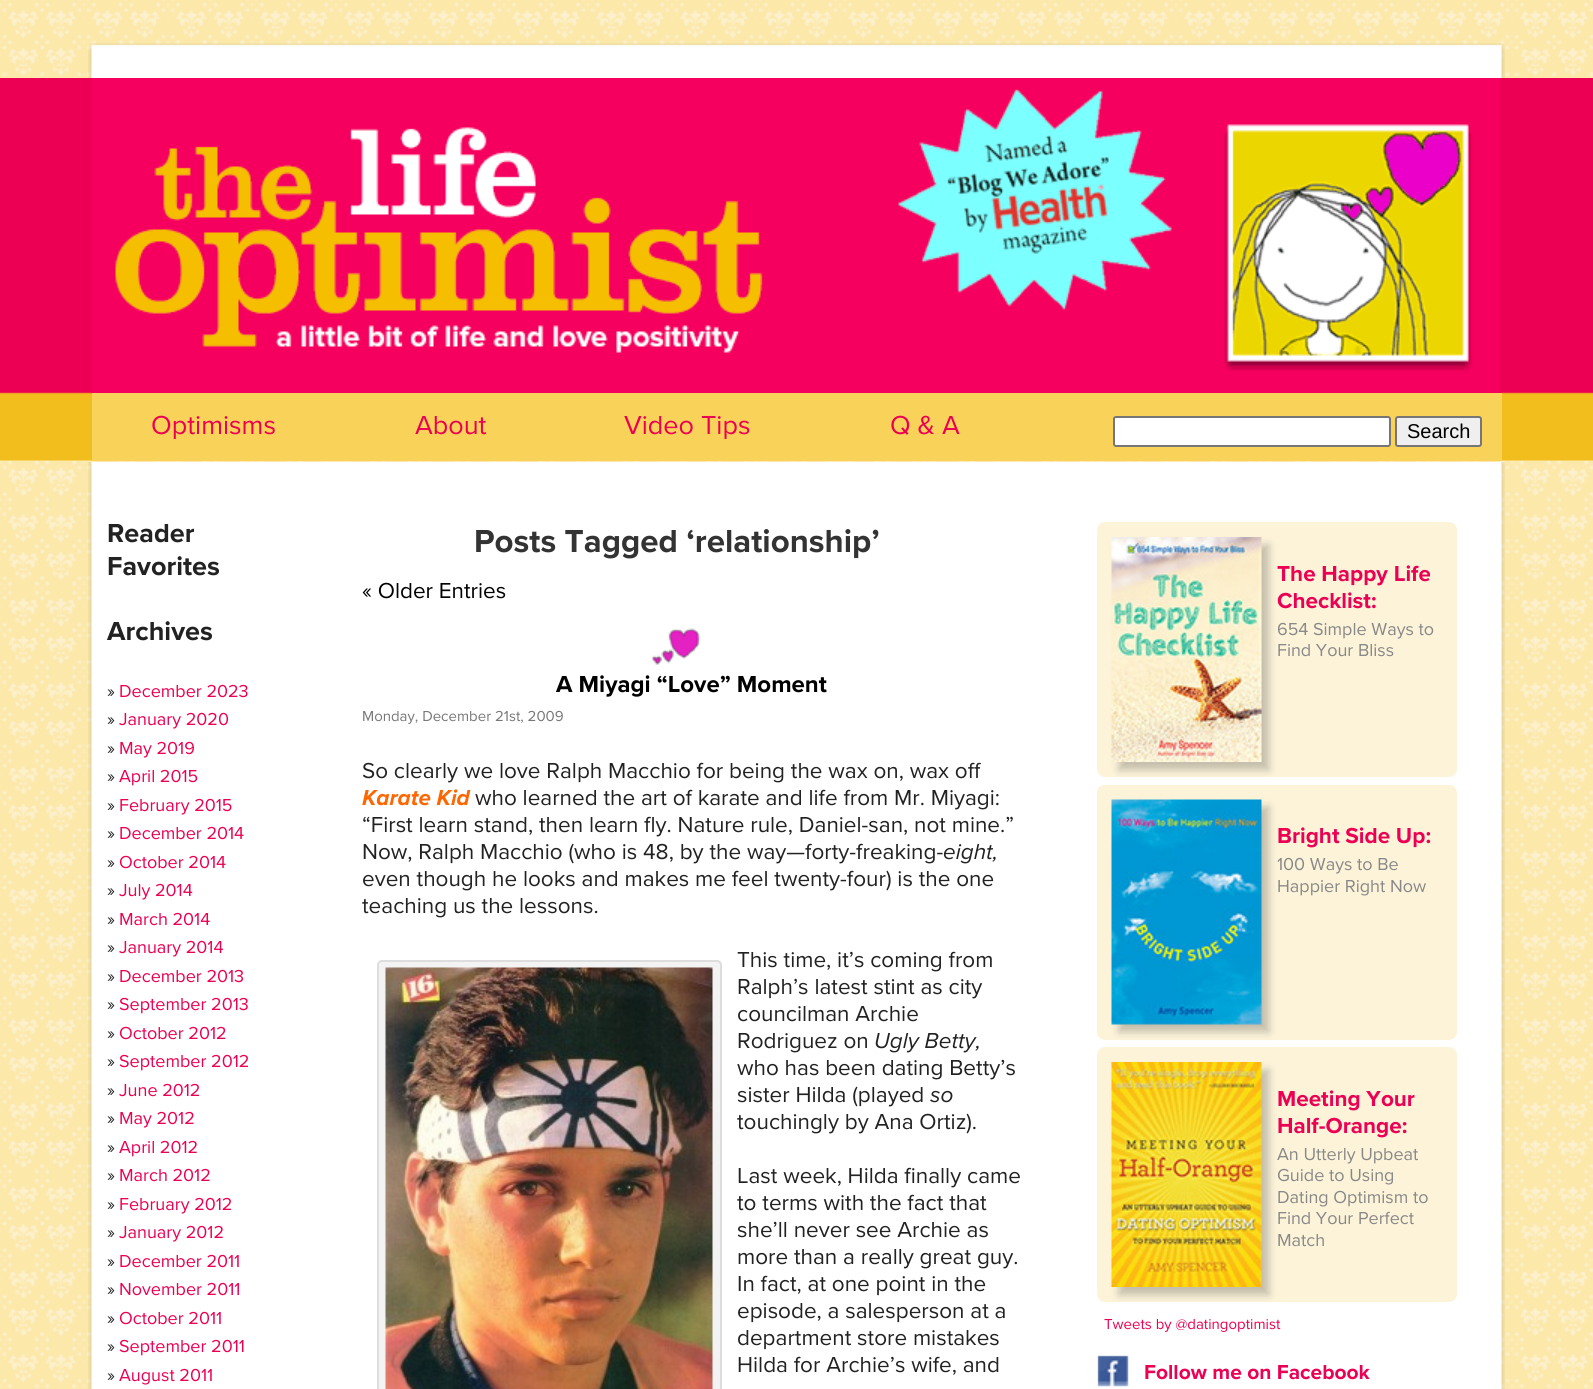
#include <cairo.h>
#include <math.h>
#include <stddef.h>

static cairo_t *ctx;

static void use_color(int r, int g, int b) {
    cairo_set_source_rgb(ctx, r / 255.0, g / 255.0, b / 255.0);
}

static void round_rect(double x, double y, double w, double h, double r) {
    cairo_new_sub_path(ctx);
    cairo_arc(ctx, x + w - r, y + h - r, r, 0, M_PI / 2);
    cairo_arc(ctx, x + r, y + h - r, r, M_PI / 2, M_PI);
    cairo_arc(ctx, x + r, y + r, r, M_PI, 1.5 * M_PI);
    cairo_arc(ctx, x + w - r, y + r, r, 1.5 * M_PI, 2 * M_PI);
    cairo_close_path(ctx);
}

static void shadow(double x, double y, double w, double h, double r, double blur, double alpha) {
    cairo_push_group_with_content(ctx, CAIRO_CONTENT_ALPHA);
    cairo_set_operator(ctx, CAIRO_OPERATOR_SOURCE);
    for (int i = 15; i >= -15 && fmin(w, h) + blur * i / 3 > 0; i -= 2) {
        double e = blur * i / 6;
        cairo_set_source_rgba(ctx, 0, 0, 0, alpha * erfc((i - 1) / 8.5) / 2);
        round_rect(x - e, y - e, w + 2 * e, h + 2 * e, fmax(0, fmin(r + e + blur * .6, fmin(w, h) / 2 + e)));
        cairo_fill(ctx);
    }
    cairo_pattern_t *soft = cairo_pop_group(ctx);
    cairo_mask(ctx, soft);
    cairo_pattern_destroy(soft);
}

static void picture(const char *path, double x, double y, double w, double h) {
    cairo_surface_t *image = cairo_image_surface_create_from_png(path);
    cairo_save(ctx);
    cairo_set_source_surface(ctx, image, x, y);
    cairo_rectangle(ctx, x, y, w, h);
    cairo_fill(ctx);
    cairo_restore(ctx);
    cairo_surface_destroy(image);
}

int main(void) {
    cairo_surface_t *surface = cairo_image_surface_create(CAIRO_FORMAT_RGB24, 1593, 1389);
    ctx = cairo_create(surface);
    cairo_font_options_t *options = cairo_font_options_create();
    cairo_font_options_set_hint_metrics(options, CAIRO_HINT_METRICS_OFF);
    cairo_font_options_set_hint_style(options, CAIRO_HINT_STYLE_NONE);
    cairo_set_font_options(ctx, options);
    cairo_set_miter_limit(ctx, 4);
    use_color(255, 255, 255);
    cairo_paint(ctx);
    picture("img1.png", 0, 0, 1593, 1389);
    picture("img2.png", 88, 43, 1417, 35);
    picture("img3.png", 0, 78, 1593, 383);
    picture("img4.png", 91, 78, 1411, 315);
    use_color(249, 210, 89);
    cairo_rectangle(ctx, 92, 393, 1410, 68);
    cairo_fill(ctx);
    cairo_select_font_face(ctx, "Proxima Nova", CAIRO_FONT_SLANT_NORMAL, CAIRO_FONT_WEIGHT_NORMAL);
    cairo_set_font_size(ctx, 27);
    use_color(236, 0, 83);
    cairo_move_to(ctx, 151, 434);
    cairo_show_text(ctx, "Optimisms");
    cairo_move_to(ctx, 415, 434);
    cairo_show_text(ctx, "About");
    cairo_move_to(ctx, 624, 434);
    cairo_show_text(ctx, "Video Tips");
    cairo_move_to(ctx, 890, 434);
    cairo_show_text(ctx, "Q & A");
    use_color(255, 255, 255);
    round_rect(1114, 417, 276, 29, 2);
    cairo_fill_preserve(ctx);
    use_color(118, 118, 118);
    cairo_stroke(ctx);
    use_color(239, 239, 239);
    round_rect(1396, 417, 85, 29, 2);
    cairo_fill_preserve(ctx);
    use_color(118, 118, 118);
    cairo_stroke(ctx);
    cairo_select_font_face(ctx, "Liberation Sans", CAIRO_FONT_SLANT_NORMAL, CAIRO_FONT_WEIGHT_NORMAL);
    cairo_set_font_size(ctx, 20);
    use_color(0, 0, 0);
    cairo_move_to(ctx, 1407, 438);
    cairo_show_text(ctx, "Search");
    picture("img5.png", 88, 462, 1417, 927);
    cairo_select_font_face(ctx, "Proxima Nova", CAIRO_FONT_SLANT_NORMAL, CAIRO_FONT_WEIGHT_BOLD);
    cairo_set_font_size(ctx, 27);
    use_color(34, 34, 34);
    cairo_move_to(ctx, 107, 542);
    cairo_show_text(ctx, "Reader");
    cairo_move_to(ctx, 107, 575);
    cairo_show_text(ctx, "Favorites");
    cairo_move_to(ctx, 107, 640);
    cairo_show_text(ctx, "Archives");
    cairo_select_font_face(ctx, "Proxima Nova", CAIRO_FONT_SLANT_NORMAL, CAIRO_FONT_WEIGHT_NORMAL);
    cairo_set_font_size(ctx, 18);
    cairo_move_to(ctx, 107, 697);
    cairo_show_text(ctx, "»");
    use_color(236, 0, 83);
    cairo_move_to(ctx, 119, 697);
    cairo_show_text(ctx, "December 2023");
    use_color(34, 34, 34);
    cairo_move_to(ctx, 107, 725);
    cairo_show_text(ctx, "»");
    use_color(236, 0, 83);
    cairo_move_to(ctx, 119, 725);
    cairo_show_text(ctx, "January 2020");
    use_color(34, 34, 34);
    cairo_move_to(ctx, 107, 754);
    cairo_show_text(ctx, "»");
    use_color(236, 0, 83);
    cairo_move_to(ctx, 119, 754);
    cairo_show_text(ctx, "May 2019");
    use_color(34, 34, 34);
    cairo_move_to(ctx, 107, 782);
    cairo_show_text(ctx, "»");
    use_color(236, 0, 83);
    cairo_move_to(ctx, 119, 782);
    cairo_show_text(ctx, "April 2015");
    use_color(34, 34, 34);
    cairo_move_to(ctx, 107, 811);
    cairo_show_text(ctx, "»");
    use_color(236, 0, 83);
    cairo_move_to(ctx, 119, 811);
    cairo_show_text(ctx, "February 2015");
    use_color(34, 34, 34);
    cairo_move_to(ctx, 107, 839);
    cairo_show_text(ctx, "»");
    use_color(236, 0, 83);
    cairo_move_to(ctx, 119, 839);
    cairo_show_text(ctx, "December 2014");
    use_color(34, 34, 34);
    cairo_move_to(ctx, 107, 868);
    cairo_show_text(ctx, "»");
    use_color(236, 0, 83);
    cairo_move_to(ctx, 119, 868);
    cairo_show_text(ctx, "October 2014");
    use_color(34, 34, 34);
    cairo_move_to(ctx, 107, 896);
    cairo_show_text(ctx, "»");
    use_color(236, 0, 83);
    cairo_move_to(ctx, 119, 896);
    cairo_show_text(ctx, "July 2014");
    use_color(34, 34, 34);
    cairo_move_to(ctx, 107, 925);
    cairo_show_text(ctx, "»");
    use_color(236, 0, 83);
    cairo_move_to(ctx, 119, 925);
    cairo_show_text(ctx, "March 2014");
    use_color(34, 34, 34);
    cairo_move_to(ctx, 107, 953);
    cairo_show_text(ctx, "»");
    use_color(236, 0, 83);
    cairo_move_to(ctx, 119, 953);
    cairo_show_text(ctx, "January 2014");
    use_color(34, 34, 34);
    cairo_move_to(ctx, 107, 982);
    cairo_show_text(ctx, "»");
    use_color(236, 0, 83);
    cairo_move_to(ctx, 119, 982);
    cairo_show_text(ctx, "December 2013");
    use_color(34, 34, 34);
    cairo_move_to(ctx, 107, 1010);
    cairo_show_text(ctx, "»");
    use_color(236, 0, 83);
    cairo_move_to(ctx, 119, 1010);
    cairo_show_text(ctx, "September 2013");
    use_color(34, 34, 34);
    cairo_move_to(ctx, 107, 1039);
    cairo_show_text(ctx, "»");
    use_color(236, 0, 83);
    cairo_move_to(ctx, 119, 1039);
    cairo_show_text(ctx, "October 2012");
    use_color(34, 34, 34);
    cairo_move_to(ctx, 107, 1067);
    cairo_show_text(ctx, "»");
    use_color(236, 0, 83);
    cairo_move_to(ctx, 119, 1067);
    cairo_show_text(ctx, "September 2012");
    use_color(34, 34, 34);
    cairo_move_to(ctx, 107, 1096);
    cairo_show_text(ctx, "»");
    use_color(236, 0, 83);
    cairo_move_to(ctx, 119, 1096);
    cairo_show_text(ctx, "June 2012");
    use_color(34, 34, 34);
    cairo_move_to(ctx, 107, 1124);
    cairo_show_text(ctx, "»");
    use_color(236, 0, 83);
    cairo_move_to(ctx, 119, 1124);
    cairo_show_text(ctx, "May 2012");
    use_color(34, 34, 34);
    cairo_move_to(ctx, 107, 1153);
    cairo_show_text(ctx, "»");
    use_color(236, 0, 83);
    cairo_move_to(ctx, 119, 1153);
    cairo_show_text(ctx, "April 2012");
    use_color(34, 34, 34);
    cairo_move_to(ctx, 107, 1181);
    cairo_show_text(ctx, "»");
    use_color(236, 0, 83);
    cairo_move_to(ctx, 119, 1181);
    cairo_show_text(ctx, "March 2012");
    use_color(34, 34, 34);
    cairo_move_to(ctx, 107, 1210);
    cairo_show_text(ctx, "»");
    use_color(236, 0, 83);
    cairo_move_to(ctx, 119, 1210);
    cairo_show_text(ctx, "February 2012");
    use_color(34, 34, 34);
    cairo_move_to(ctx, 107, 1238);
    cairo_show_text(ctx, "»");
    use_color(236, 0, 83);
    cairo_move_to(ctx, 119, 1238);
    cairo_show_text(ctx, "January 2012");
    use_color(34, 34, 34);
    cairo_move_to(ctx, 107, 1267);
    cairo_show_text(ctx, "»");
    use_color(236, 0, 83);
    cairo_move_to(ctx, 119, 1267);
    cairo_show_text(ctx, "December 2011");
    use_color(34, 34, 34);
    cairo_move_to(ctx, 107, 1295);
    cairo_show_text(ctx, "»");
    use_color(236, 0, 83);
    cairo_move_to(ctx, 119, 1295);
    cairo_show_text(ctx, "November 2011");
    use_color(34, 34, 34);
    cairo_move_to(ctx, 107, 1324);
    cairo_show_text(ctx, "»");
    use_color(236, 0, 83);
    cairo_move_to(ctx, 119, 1324);
    cairo_show_text(ctx, "October 2011");
    use_color(34, 34, 34);
    cairo_move_to(ctx, 107, 1352);
    cairo_show_text(ctx, "»");
    use_color(236, 0, 83);
    cairo_move_to(ctx, 119, 1352);
    cairo_show_text(ctx, "September 2011");
    use_color(34, 34, 34);
    cairo_move_to(ctx, 107, 1381);
    cairo_show_text(ctx, "»");
    use_color(236, 0, 83);
    cairo_move_to(ctx, 119, 1381);
    cairo_show_text(ctx, "August 2011");
    cairo_select_font_face(ctx, "Proxima Nova", CAIRO_FONT_SLANT_NORMAL, CAIRO_FONT_WEIGHT_BOLD);
    cairo_set_font_size(ctx, 33);
    use_color(51, 51, 51);
    cairo_move_to(ctx, 474, 552);
    cairo_show_text(ctx, "Posts Tagged ‘relationship’");
    cairo_select_font_face(ctx, "Proxima Nova", CAIRO_FONT_SLANT_NORMAL, CAIRO_FONT_WEIGHT_NORMAL);
    cairo_set_font_size(ctx, 22.5);
    use_color(0, 0, 0);
    cairo_move_to(ctx, 362, 598);
    cairo_show_text(ctx, "« Older Entries");
    picture("img6.png", 652, 628, 49, 37);
    cairo_select_font_face(ctx, "Proxima Nova", CAIRO_FONT_SLANT_NORMAL, CAIRO_FONT_WEIGHT_BOLD);
    cairo_set_font_size(ctx, 24);
    cairo_move_to(ctx, 556, 692);
    cairo_show_text(ctx, "A Miyagi “Love” Moment");
    cairo_select_font_face(ctx, "Proxima Nova", CAIRO_FONT_SLANT_NORMAL, CAIRO_FONT_WEIGHT_NORMAL);
    cairo_set_font_size(ctx, 15);
    use_color(119, 119, 119);
    cairo_move_to(ctx, 362, 721);
    cairo_show_text(ctx, "Monday, December 21st, 2009");
    cairo_set_font_size(ctx, 22.5);
    use_color(34, 34, 34);
    cairo_move_to(ctx, 362, 778);
    cairo_show_text(ctx, "So clearly we love Ralph Macchio for being the wax on, wax off");
    cairo_select_font_face(ctx, "Proxima Nova", CAIRO_FONT_SLANT_ITALIC, CAIRO_FONT_WEIGHT_BOLD);
    use_color(255, 102, 0);
    cairo_move_to(ctx, 362, 805);
    cairo_show_text(ctx, "Karate Kid");
    cairo_select_font_face(ctx, "Proxima Nova", CAIRO_FONT_SLANT_NORMAL, CAIRO_FONT_WEIGHT_NORMAL);
    use_color(34, 34, 34);
    cairo_move_to(ctx, 475, 805);
    cairo_show_text(ctx, "who learned the art of karate and life from Mr. Miyagi:");
    cairo_move_to(ctx, 362, 832);
    cairo_show_text(ctx, "“First learn stand, then learn fly. Nature rule, Daniel-san, not mine.”");
    cairo_move_to(ctx, 362, 859);
    cairo_show_text(ctx, "Now, Ralph Macchio (who is 48, by the way—forty-freaking-");
    cairo_select_font_face(ctx, "Proxima Nova", CAIRO_FONT_SLANT_ITALIC, CAIRO_FONT_WEIGHT_NORMAL);
    cairo_move_to(ctx, 943, 859);
    cairo_show_text(ctx, "eight,");
    cairo_select_font_face(ctx, "Proxima Nova", CAIRO_FONT_SLANT_NORMAL, CAIRO_FONT_WEIGHT_NORMAL);
    cairo_move_to(ctx, 362, 886);
    cairo_show_text(ctx, "even though he looks and makes me feel twenty-four) is the one");
    cairo_move_to(ctx, 362, 913);
    cairo_show_text(ctx, "teaching us the lessons.");
    use_color(243, 243, 243);
    round_rect(378, 961, 343, 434, 4);
    cairo_fill_preserve(ctx);
    use_color(221, 221, 221);
    cairo_stroke(ctx);
    picture("img7.png", 385, 967, 328, 422);
    use_color(34, 34, 34);
    cairo_move_to(ctx, 737, 967);
    cairo_show_text(ctx, "This time, it’s coming from");
    cairo_move_to(ctx, 737, 994);
    cairo_show_text(ctx, "Ralph’s latest stint as city");
    cairo_move_to(ctx, 737, 1021);
    cairo_show_text(ctx, "councilman Archie");
    cairo_move_to(ctx, 737, 1048);
    cairo_show_text(ctx, "Rodriguez on");
    cairo_select_font_face(ctx, "Proxima Nova", CAIRO_FONT_SLANT_ITALIC, CAIRO_FONT_WEIGHT_NORMAL);
    cairo_move_to(ctx, 874, 1048);
    cairo_show_text(ctx, "Ugly Betty,");
    cairo_select_font_face(ctx, "Proxima Nova", CAIRO_FONT_SLANT_NORMAL, CAIRO_FONT_WEIGHT_NORMAL);
    cairo_move_to(ctx, 737, 1075);
    cairo_show_text(ctx, "who has been dating Betty’s");
    cairo_move_to(ctx, 737, 1102);
    cairo_show_text(ctx, "sister Hilda (played");
    cairo_select_font_face(ctx, "Proxima Nova", CAIRO_FONT_SLANT_ITALIC, CAIRO_FONT_WEIGHT_NORMAL);
    cairo_move_to(ctx, 930, 1102);
    cairo_show_text(ctx, "so");
    cairo_select_font_face(ctx, "Proxima Nova", CAIRO_FONT_SLANT_NORMAL, CAIRO_FONT_WEIGHT_NORMAL);
    cairo_move_to(ctx, 737, 1129);
    cairo_show_text(ctx, "touchingly by Ana Ortiz).");
    cairo_move_to(ctx, 737, 1183);
    cairo_show_text(ctx, "Last week, Hilda finally came");
    cairo_move_to(ctx, 737, 1210);
    cairo_show_text(ctx, "to terms with the fact that");
    cairo_move_to(ctx, 737, 1237);
    cairo_show_text(ctx, "she’ll never see Archie as");
    cairo_move_to(ctx, 737, 1264);
    cairo_show_text(ctx, "more than a really great guy.");
    cairo_move_to(ctx, 737, 1291);
    cairo_show_text(ctx, "In fact, at one point in the");
    cairo_move_to(ctx, 737, 1318);
    cairo_show_text(ctx, "episode, a salesperson at a");
    cairo_move_to(ctx, 737, 1345);
    cairo_show_text(ctx, "department store mistakes");
    cairo_move_to(ctx, 737, 1372);
    cairo_show_text(ctx, "Hilda for Archie’s wife, and");
    use_color(252, 243, 217);
    round_rect(1097, 522, 360, 255, 8);
    cairo_fill(ctx);
    use_color(68, 68, 68);
    shadow(1119, 545, 150, 225, 0, 4, 0.3);
    picture("img8.png", 1111, 537, 151, 225);
    cairo_select_font_face(ctx, "Proxima Nova", CAIRO_FONT_SLANT_NORMAL, CAIRO_FONT_WEIGHT_BOLD);
    use_color(236, 0, 83);
    cairo_move_to(ctx, 1277, 581);
    cairo_show_text(ctx, "The Happy Life");
    cairo_move_to(ctx, 1277, 608);
    cairo_show_text(ctx, "Checklist:");
    cairo_select_font_face(ctx, "Proxima Nova", CAIRO_FONT_SLANT_NORMAL, CAIRO_FONT_WEIGHT_NORMAL);
    cairo_set_font_size(ctx, 18);
    use_color(136, 136, 136);
    cairo_move_to(ctx, 1277, 635);
    cairo_show_text(ctx, "654 Simple Ways to");
    cairo_move_to(ctx, 1277, 656);
    cairo_show_text(ctx, "Find Your Bliss");
    use_color(252, 243, 217);
    round_rect(1097, 785, 360, 255, 8);
    cairo_fill(ctx);
    use_color(68, 68, 68);
    shadow(1119, 807, 150, 225, 0, 4, 0.3);
    picture("img9.png", 1111, 799, 151, 226);
    cairo_select_font_face(ctx, "Proxima Nova", CAIRO_FONT_SLANT_NORMAL, CAIRO_FONT_WEIGHT_BOLD);
    cairo_set_font_size(ctx, 22.5);
    use_color(236, 0, 83);
    cairo_move_to(ctx, 1277, 843);
    cairo_show_text(ctx, "Bright Side Up:");
    cairo_select_font_face(ctx, "Proxima Nova", CAIRO_FONT_SLANT_NORMAL, CAIRO_FONT_WEIGHT_NORMAL);
    cairo_set_font_size(ctx, 18);
    use_color(136, 136, 136);
    cairo_move_to(ctx, 1277, 870);
    cairo_show_text(ctx, "100 Ways to Be");
    cairo_move_to(ctx, 1277, 892);
    cairo_show_text(ctx, "Happier Right Now");
    use_color(252, 243, 217);
    round_rect(1097, 1047, 360, 255, 8);
    cairo_fill(ctx);
    use_color(68, 68, 68);
    shadow(1119, 1070, 150, 225, 0, 4, 0.3);
    picture("img10.png", 1111, 1062, 151, 225);
    cairo_select_font_face(ctx, "Proxima Nova", CAIRO_FONT_SLANT_NORMAL, CAIRO_FONT_WEIGHT_BOLD);
    cairo_set_font_size(ctx, 22.5);
    use_color(236, 0, 83);
    cairo_move_to(ctx, 1277, 1106);
    cairo_show_text(ctx, "Meeting Your");
    cairo_move_to(ctx, 1277, 1133);
    cairo_show_text(ctx, "Half-Orange:");
    cairo_select_font_face(ctx, "Proxima Nova", CAIRO_FONT_SLANT_NORMAL, CAIRO_FONT_WEIGHT_NORMAL);
    cairo_set_font_size(ctx, 18);
    use_color(136, 136, 136);
    cairo_move_to(ctx, 1277, 1160);
    cairo_show_text(ctx, "An Utterly Upbeat");
    cairo_move_to(ctx, 1277, 1181);
    cairo_show_text(ctx, "Guide to Using");
    cairo_move_to(ctx, 1277, 1203);
    cairo_show_text(ctx, "Dating Optimism to");
    cairo_move_to(ctx, 1277, 1224);
    cairo_show_text(ctx, "Find Your Perfect");
    cairo_move_to(ctx, 1277, 1246);
    cairo_show_text(ctx, "Match");
    cairo_set_font_size(ctx, 15);
    use_color(236, 0, 83);
    cairo_move_to(ctx, 1104, 1329);
    cairo_show_text(ctx, "Tweets by @datingoptimist");
    picture("img11.png", 1097, 1355, 32, 32);
    cairo_select_font_face(ctx, "Proxima Nova", CAIRO_FONT_SLANT_NORMAL, CAIRO_FONT_WEIGHT_BOLD);
    cairo_set_font_size(ctx, 21);
    cairo_move_to(ctx, 1144, 1379);
    cairo_show_text(ctx, "Follow me on Facebook");
    cairo_surface_write_to_png(surface, "result.png");
    cairo_font_options_destroy(options);
    cairo_destroy(ctx);
    cairo_surface_destroy(surface);
    return 0;
}
